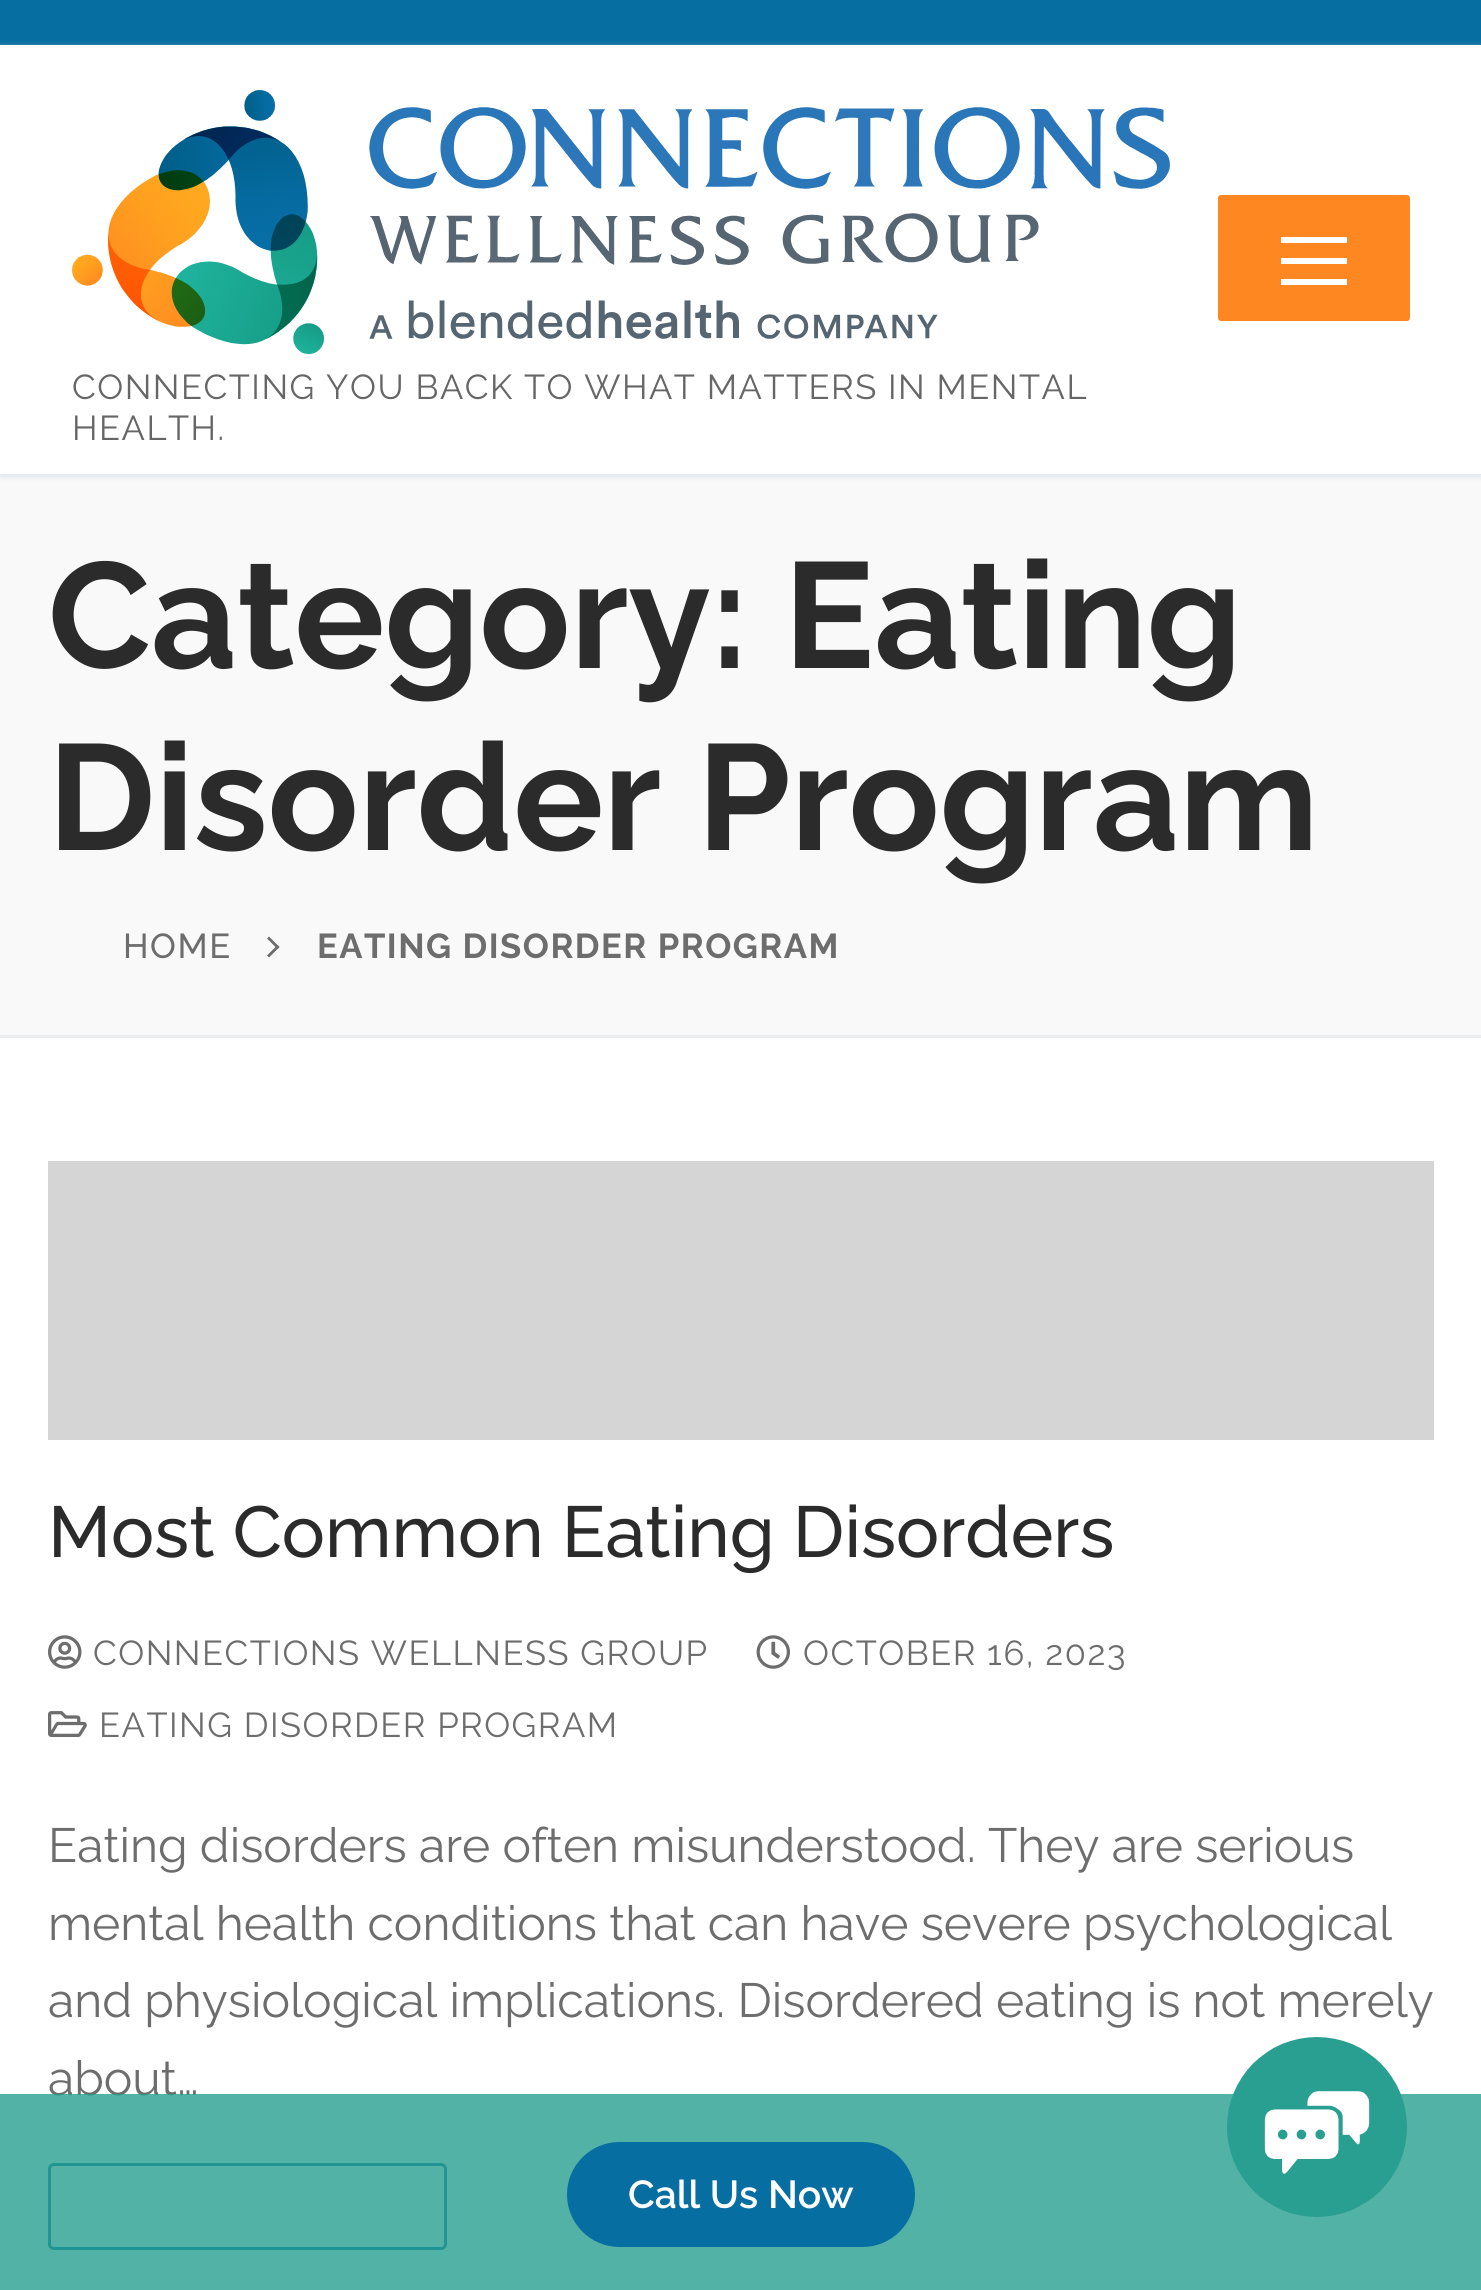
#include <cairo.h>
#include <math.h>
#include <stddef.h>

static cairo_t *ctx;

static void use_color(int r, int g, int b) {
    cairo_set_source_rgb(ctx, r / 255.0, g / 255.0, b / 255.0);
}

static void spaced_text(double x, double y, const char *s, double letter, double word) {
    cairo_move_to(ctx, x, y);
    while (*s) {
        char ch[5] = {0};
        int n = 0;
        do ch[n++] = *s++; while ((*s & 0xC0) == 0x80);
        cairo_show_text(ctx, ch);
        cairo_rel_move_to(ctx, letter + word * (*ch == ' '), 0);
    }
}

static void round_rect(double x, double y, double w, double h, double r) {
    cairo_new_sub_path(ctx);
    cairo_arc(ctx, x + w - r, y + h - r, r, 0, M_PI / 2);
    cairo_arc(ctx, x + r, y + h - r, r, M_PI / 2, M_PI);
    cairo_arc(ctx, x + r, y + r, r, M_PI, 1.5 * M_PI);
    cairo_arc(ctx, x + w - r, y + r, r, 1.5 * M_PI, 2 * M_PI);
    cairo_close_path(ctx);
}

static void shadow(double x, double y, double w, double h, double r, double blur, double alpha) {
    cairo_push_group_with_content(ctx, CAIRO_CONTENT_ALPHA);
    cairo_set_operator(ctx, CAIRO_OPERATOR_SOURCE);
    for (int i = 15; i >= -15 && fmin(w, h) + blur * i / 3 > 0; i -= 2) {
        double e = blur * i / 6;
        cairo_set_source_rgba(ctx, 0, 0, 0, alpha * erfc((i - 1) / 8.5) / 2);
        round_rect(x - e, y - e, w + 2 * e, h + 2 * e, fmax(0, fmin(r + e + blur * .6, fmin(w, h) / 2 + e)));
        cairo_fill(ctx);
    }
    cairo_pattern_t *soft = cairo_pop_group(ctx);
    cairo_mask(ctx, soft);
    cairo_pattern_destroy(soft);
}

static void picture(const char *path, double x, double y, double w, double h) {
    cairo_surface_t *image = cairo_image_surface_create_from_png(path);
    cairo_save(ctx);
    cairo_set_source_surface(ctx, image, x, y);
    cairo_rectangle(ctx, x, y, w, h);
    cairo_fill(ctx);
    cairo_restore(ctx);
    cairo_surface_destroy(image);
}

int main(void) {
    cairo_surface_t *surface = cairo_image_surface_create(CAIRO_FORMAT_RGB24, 1481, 2290);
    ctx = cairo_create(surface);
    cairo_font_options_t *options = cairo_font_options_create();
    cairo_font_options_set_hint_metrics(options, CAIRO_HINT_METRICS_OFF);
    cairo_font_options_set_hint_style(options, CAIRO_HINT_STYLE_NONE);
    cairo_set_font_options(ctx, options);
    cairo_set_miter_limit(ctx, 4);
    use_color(255, 255, 255);
    cairo_paint(ctx);
    use_color(7, 110, 161);
    cairo_rectangle(ctx, 0, 0, 1481, 45);
    cairo_fill(ctx);
    use_color(249, 249, 249);
    cairo_rectangle(ctx, 0, 474, 1481, 561);
    cairo_fill(ctx);
    cairo_save(ctx);
    cairo_set_fill_rule(ctx, CAIRO_FILL_RULE_EVEN_ODD);
    cairo_new_path(ctx);
    cairo_move_to(ctx, 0, 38);
    cairo_line_to(ctx, 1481, 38);
    cairo_line_to(ctx, 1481, 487);
    cairo_line_to(ctx, 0, 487);
    cairo_close_path(ctx);
    cairo_move_to(ctx, 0, 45);
    cairo_line_to(ctx, 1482, 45);
    cairo_line_to(ctx, 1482, 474);
    cairo_line_to(ctx, 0, 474);
    cairo_close_path(ctx);
    cairo_clip(ctx);
    use_color(225, 229, 234);
    shadow(0, 48, 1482, 429, 0, 3, 1);
    cairo_restore(ctx);
    use_color(255, 135, 34);
    round_rect(1218, 195, 192, 126, 3);
    cairo_fill(ctx);
    use_color(255, 255, 255);
    cairo_rectangle(ctx, 1281, 258, 66, 6);
    cairo_fill(ctx);
    cairo_rectangle(ctx, 1281, 237, 66, 6);
    cairo_fill(ctx);
    cairo_rectangle(ctx, 1281, 279, 66, 6);
    cairo_fill(ctx);
    picture("img1.png", 72, 90, 1098, 264);
    cairo_select_font_face(ctx, "Raleway", CAIRO_FONT_SLANT_NORMAL, CAIRO_FONT_WEIGHT_NORMAL);
    cairo_set_font_size(ctx, 34.55);
    use_color(102, 102, 102);
    spaced_text(72, 399, "CONNECTING YOU BACK TO WHAT MATTERS IN MENTAL", 1.5, 0);
    spaced_text(72, 440, "HEALTH.", 1.5, 0);
    use_color(234, 236, 238);
    cairo_rectangle(ctx, 0, 1035, 1481, 3);
    cairo_fill(ctx);
    cairo_select_font_face(ctx, "Raleway", CAIRO_FONT_SLANT_NORMAL, CAIRO_FONT_WEIGHT_BOLD);
    cairo_set_font_size(ctx, 150);
    use_color(43, 43, 43);
    cairo_move_to(ctx, 48, 668);
    cairo_show_text(ctx, "Category: Eating");
    cairo_move_to(ctx, 48, 850);
    cairo_show_text(ctx, "Disorder Program");
    cairo_select_font_face(ctx, "Raleway Medium", CAIRO_FONT_SLANT_NORMAL, CAIRO_FONT_WEIGHT_NORMAL);
    cairo_set_font_size(ctx, 34.55);
    use_color(109, 109, 109);
    spaced_text(123, 958, "HOME", 1.5, 0);
    cairo_new_path(ctx);
    cairo_move_to(ctx, 279.5, 947);
    cairo_line_to(ctx, 269, 957.5);
    cairo_line_to(ctx, 267, 955.5);
    cairo_line_to(ctx, 277.5, 945);
    cairo_close_path(ctx);
    cairo_fill(ctx);
    cairo_new_path(ctx);
    cairo_move_to(ctx, 279.5, 947);
    cairo_line_to(ctx, 277.5, 949);
    cairo_line_to(ctx, 267, 938.5);
    cairo_line_to(ctx, 269, 936.5);
    cairo_close_path(ctx);
    cairo_fill(ctx);
    cairo_select_font_face(ctx, "Raleway", CAIRO_FONT_SLANT_NORMAL, CAIRO_FONT_WEIGHT_BOLD);
    spaced_text(317, 958, "EATING DISORDER PROGRAM", 1.5, 0);
    use_color(213, 213, 213);
    cairo_rectangle(ctx, 48, 1161, 1386, 279);
    cairo_fill(ctx);
    cairo_select_font_face(ctx, "Raleway Medium", CAIRO_FONT_SLANT_NORMAL, CAIRO_FONT_WEIGHT_NORMAL);
    cairo_set_font_size(ctx, 72);
    use_color(43, 43, 43);
    cairo_move_to(ctx, 48, 1557);
    cairo_show_text(ctx, "Most Common Eating Disorders");
    picture("img2.png", 48, 1635, 34, 34);
    cairo_select_font_face(ctx, "Raleway", CAIRO_FONT_SLANT_NORMAL, CAIRO_FONT_WEIGHT_NORMAL);
    cairo_set_font_size(ctx, 34.55);
    use_color(109, 109, 109);
    spaced_text(93, 1665, "CONNECTIONS WELLNESS GROUP", 1.5, 0);
    picture("img3.png", 756, 1635, 34, 34);
    spaced_text(803, 1665, "OCTOBER 16, 2023", 1.5, 0);
    picture("img4.png", 48, 1711, 39, 26);
    spaced_text(99, 1737, "EATING DISORDER PROGRAM", 1.5, 0);
    cairo_set_font_size(ctx, 48);
    cairo_move_to(ctx, 48, 1862);
    cairo_show_text(ctx, "Eating disorders are often misunderstood. They are serious");
    cairo_move_to(ctx, 48, 1940);
    cairo_show_text(ctx, "mental health conditions that can have severe psychological");
    cairo_move_to(ctx, 48, 2017);
    cairo_show_text(ctx, "and physiological implications. Disordered eating is not merely");
    cairo_move_to(ctx, 48, 2095);
    cairo_show_text(ctx, "about…");
    round_rect(49.5, 2164.5, 396, 84, 4.5);
    use_color(7, 110, 161);
    cairo_set_line_width(ctx, 3);
    cairo_stroke(ctx);
    cairo_set_source_rgba(ctx, 0.157, 0.624, 0.565, 0.8);
    cairo_rectangle(ctx, 0, 2094, 1481, 196);
    cairo_fill(ctx);
    use_color(7, 110, 161);
    round_rect(567, 2142, 348, 105, 52.5);
    cairo_fill(ctx);
    cairo_select_font_face(ctx, "Raleway SemiBold", CAIRO_FONT_SLANT_NORMAL, CAIRO_FONT_WEIGHT_NORMAL);
    cairo_set_font_size(ctx, 39);
    use_color(255, 255, 255);
    cairo_move_to(ctx, 628, 2208);
    cairo_show_text(ctx, "Call Us Now");
    picture("img5.png", 1227, 1992, 180, 225);
    cairo_surface_write_to_png(surface, "result.png");
    cairo_font_options_destroy(options);
    cairo_destroy(ctx);
    cairo_surface_destroy(surface);
    return 0;
}
